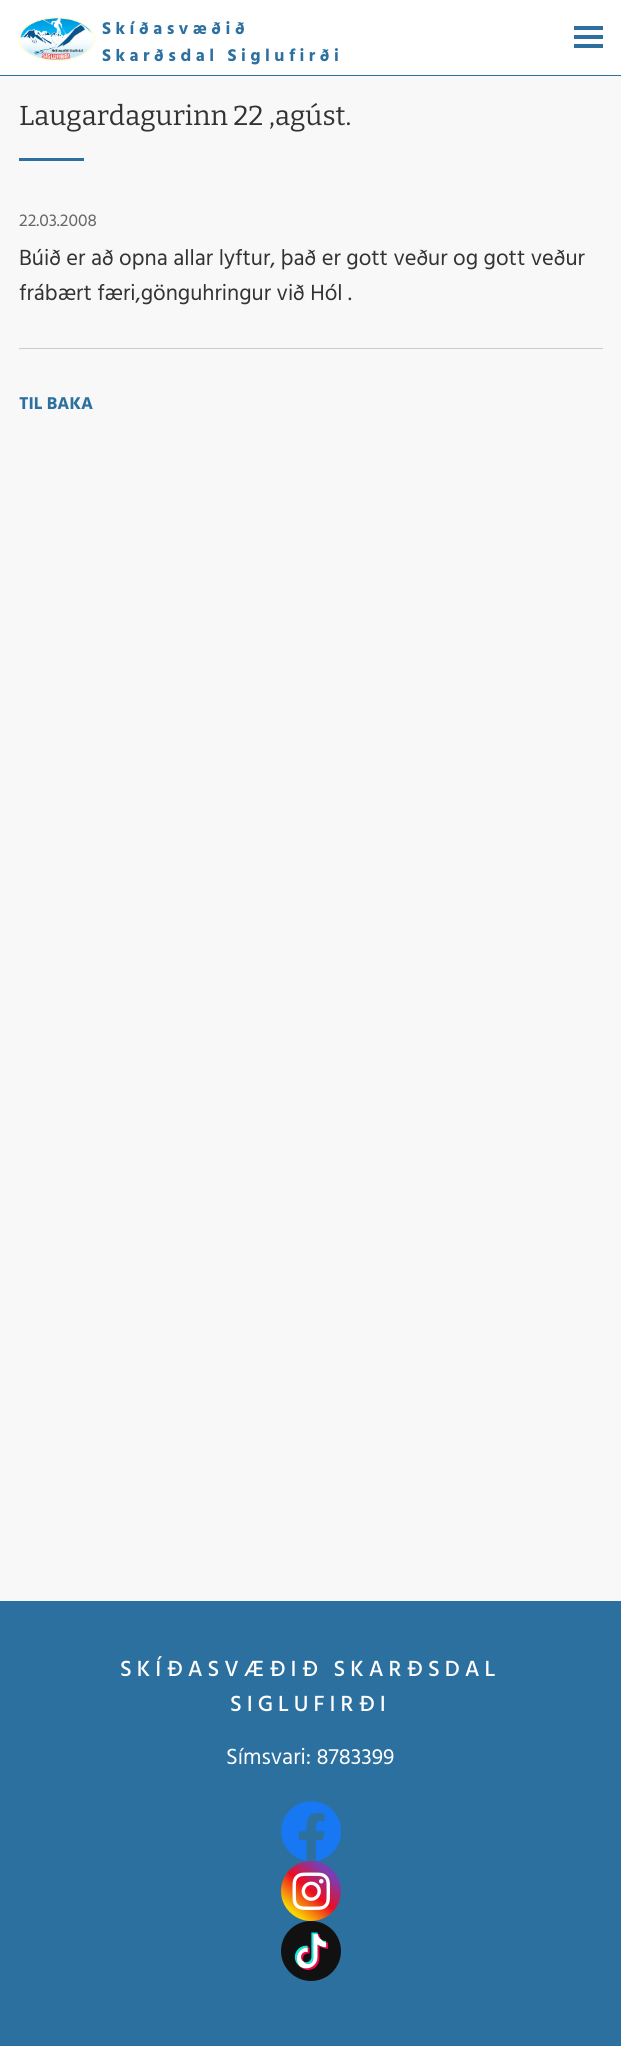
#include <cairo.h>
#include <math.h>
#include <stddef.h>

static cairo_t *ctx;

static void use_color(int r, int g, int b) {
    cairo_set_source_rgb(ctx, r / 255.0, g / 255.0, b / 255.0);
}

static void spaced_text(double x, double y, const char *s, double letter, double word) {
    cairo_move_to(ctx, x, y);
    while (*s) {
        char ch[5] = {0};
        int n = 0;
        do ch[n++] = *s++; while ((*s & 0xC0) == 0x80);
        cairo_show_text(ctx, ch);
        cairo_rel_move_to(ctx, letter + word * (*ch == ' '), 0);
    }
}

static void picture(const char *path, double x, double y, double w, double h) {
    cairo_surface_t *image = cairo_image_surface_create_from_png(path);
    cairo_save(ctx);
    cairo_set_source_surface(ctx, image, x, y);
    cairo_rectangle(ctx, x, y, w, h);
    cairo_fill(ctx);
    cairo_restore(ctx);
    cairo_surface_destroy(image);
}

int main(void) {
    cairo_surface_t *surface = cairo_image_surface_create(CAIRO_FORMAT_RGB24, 621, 2046);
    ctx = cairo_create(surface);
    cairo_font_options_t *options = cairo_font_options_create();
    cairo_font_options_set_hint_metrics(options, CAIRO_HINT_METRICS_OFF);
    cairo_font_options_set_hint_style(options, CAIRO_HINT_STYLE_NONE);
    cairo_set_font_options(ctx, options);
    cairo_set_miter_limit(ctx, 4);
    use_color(248, 248, 248);
    cairo_paint(ctx);
    use_color(255, 255, 255);
    cairo_rectangle(ctx, 0, 0, 621, 75);
    cairo_fill(ctx);
    use_color(44, 112, 160);
    cairo_rectangle(ctx, 0, 75, 621, 1);
    cairo_fill(ctx);
    picture("img1.png", 18, 17, 77, 45);
    cairo_select_font_face(ctx, "Hind", CAIRO_FONT_SLANT_NORMAL, CAIRO_FONT_WEIGHT_BOLD);
    cairo_set_font_size(ctx, 17.5);
    spaced_text(102, 34, "Skíðasvæðið", 4.5, 0);
    spaced_text(102, 61, "Skarðsdal Siglufirði", 4.5, 0);
    cairo_rectangle(ctx, 574, 26, 29, 4);
    cairo_fill(ctx);
    cairo_rectangle(ctx, 574, 35, 29, 4);
    cairo_fill(ctx);
    cairo_rectangle(ctx, 574, 44, 29, 4);
    cairo_fill(ctx);
    cairo_select_font_face(ctx, "Bitter Thin", CAIRO_FONT_SLANT_NORMAL, CAIRO_FONT_WEIGHT_NORMAL);
    cairo_set_font_size(ctx, 27.5);
    use_color(51, 51, 51);
    cairo_move_to(ctx, 19, 125);
    cairo_show_text(ctx, "Laugardagurinn 22 ,agúst.");
    use_color(44, 112, 160);
    cairo_rectangle(ctx, 19, 158, 65, 3);
    cairo_fill(ctx);
    cairo_select_font_face(ctx, "Hind", CAIRO_FONT_SLANT_NORMAL, CAIRO_FONT_WEIGHT_NORMAL);
    cairo_set_font_size(ctx, 17.5);
    use_color(102, 102, 102);
    cairo_move_to(ctx, 19, 226);
    cairo_show_text(ctx, "22.03.2008");
    cairo_set_font_size(ctx, 22.5);
    use_color(51, 51, 51);
    cairo_move_to(ctx, 19, 265);
    cairo_show_text(ctx, "Búið er að opna allar lyftur, það er gott veður og gott veður");
    cairo_move_to(ctx, 19, 300);
    cairo_show_text(ctx, "frábært færi,gönguhringur við Hól .");
    use_color(204, 204, 204);
    cairo_rectangle(ctx, 19, 348, 584, 1);
    cairo_fill(ctx);
    cairo_select_font_face(ctx, "Hind", CAIRO_FONT_SLANT_NORMAL, CAIRO_FONT_WEIGHT_BOLD);
    cairo_set_font_size(ctx, 17.5);
    use_color(44, 112, 160);
    cairo_move_to(ctx, 19, 409);
    cairo_show_text(ctx, "TIL BAKA");
    cairo_rectangle(ctx, 0, 1601, 621, 445);
    cairo_fill(ctx);
    cairo_select_font_face(ctx, "Hind Medium", CAIRO_FONT_SLANT_NORMAL, CAIRO_FONT_WEIGHT_NORMAL);
    cairo_set_font_size(ctx, 22.5);
    use_color(255, 255, 255);
    spaced_text(120, 1676, "SKÍÐASVÆÐIÐ SKARÐSDAL", 5, 0);
    spaced_text(230, 1711, "SIGLUFIRÐI", 5, 0);
    cairo_select_font_face(ctx, "Hind", CAIRO_FONT_SLANT_NORMAL, CAIRO_FONT_WEIGHT_NORMAL);
    cairo_move_to(ctx, 226, 1764);
    cairo_show_text(ctx, "Símsvari: 8783399");
    picture("img2.png", 281, 1801, 60, 60);
    picture("img3.png", 281, 1861, 60, 60);
    picture("img4.png", 281, 1921, 60, 60);
    cairo_surface_write_to_png(surface, "result.png");
    cairo_font_options_destroy(options);
    cairo_destroy(ctx);
    cairo_surface_destroy(surface);
    return 0;
}
